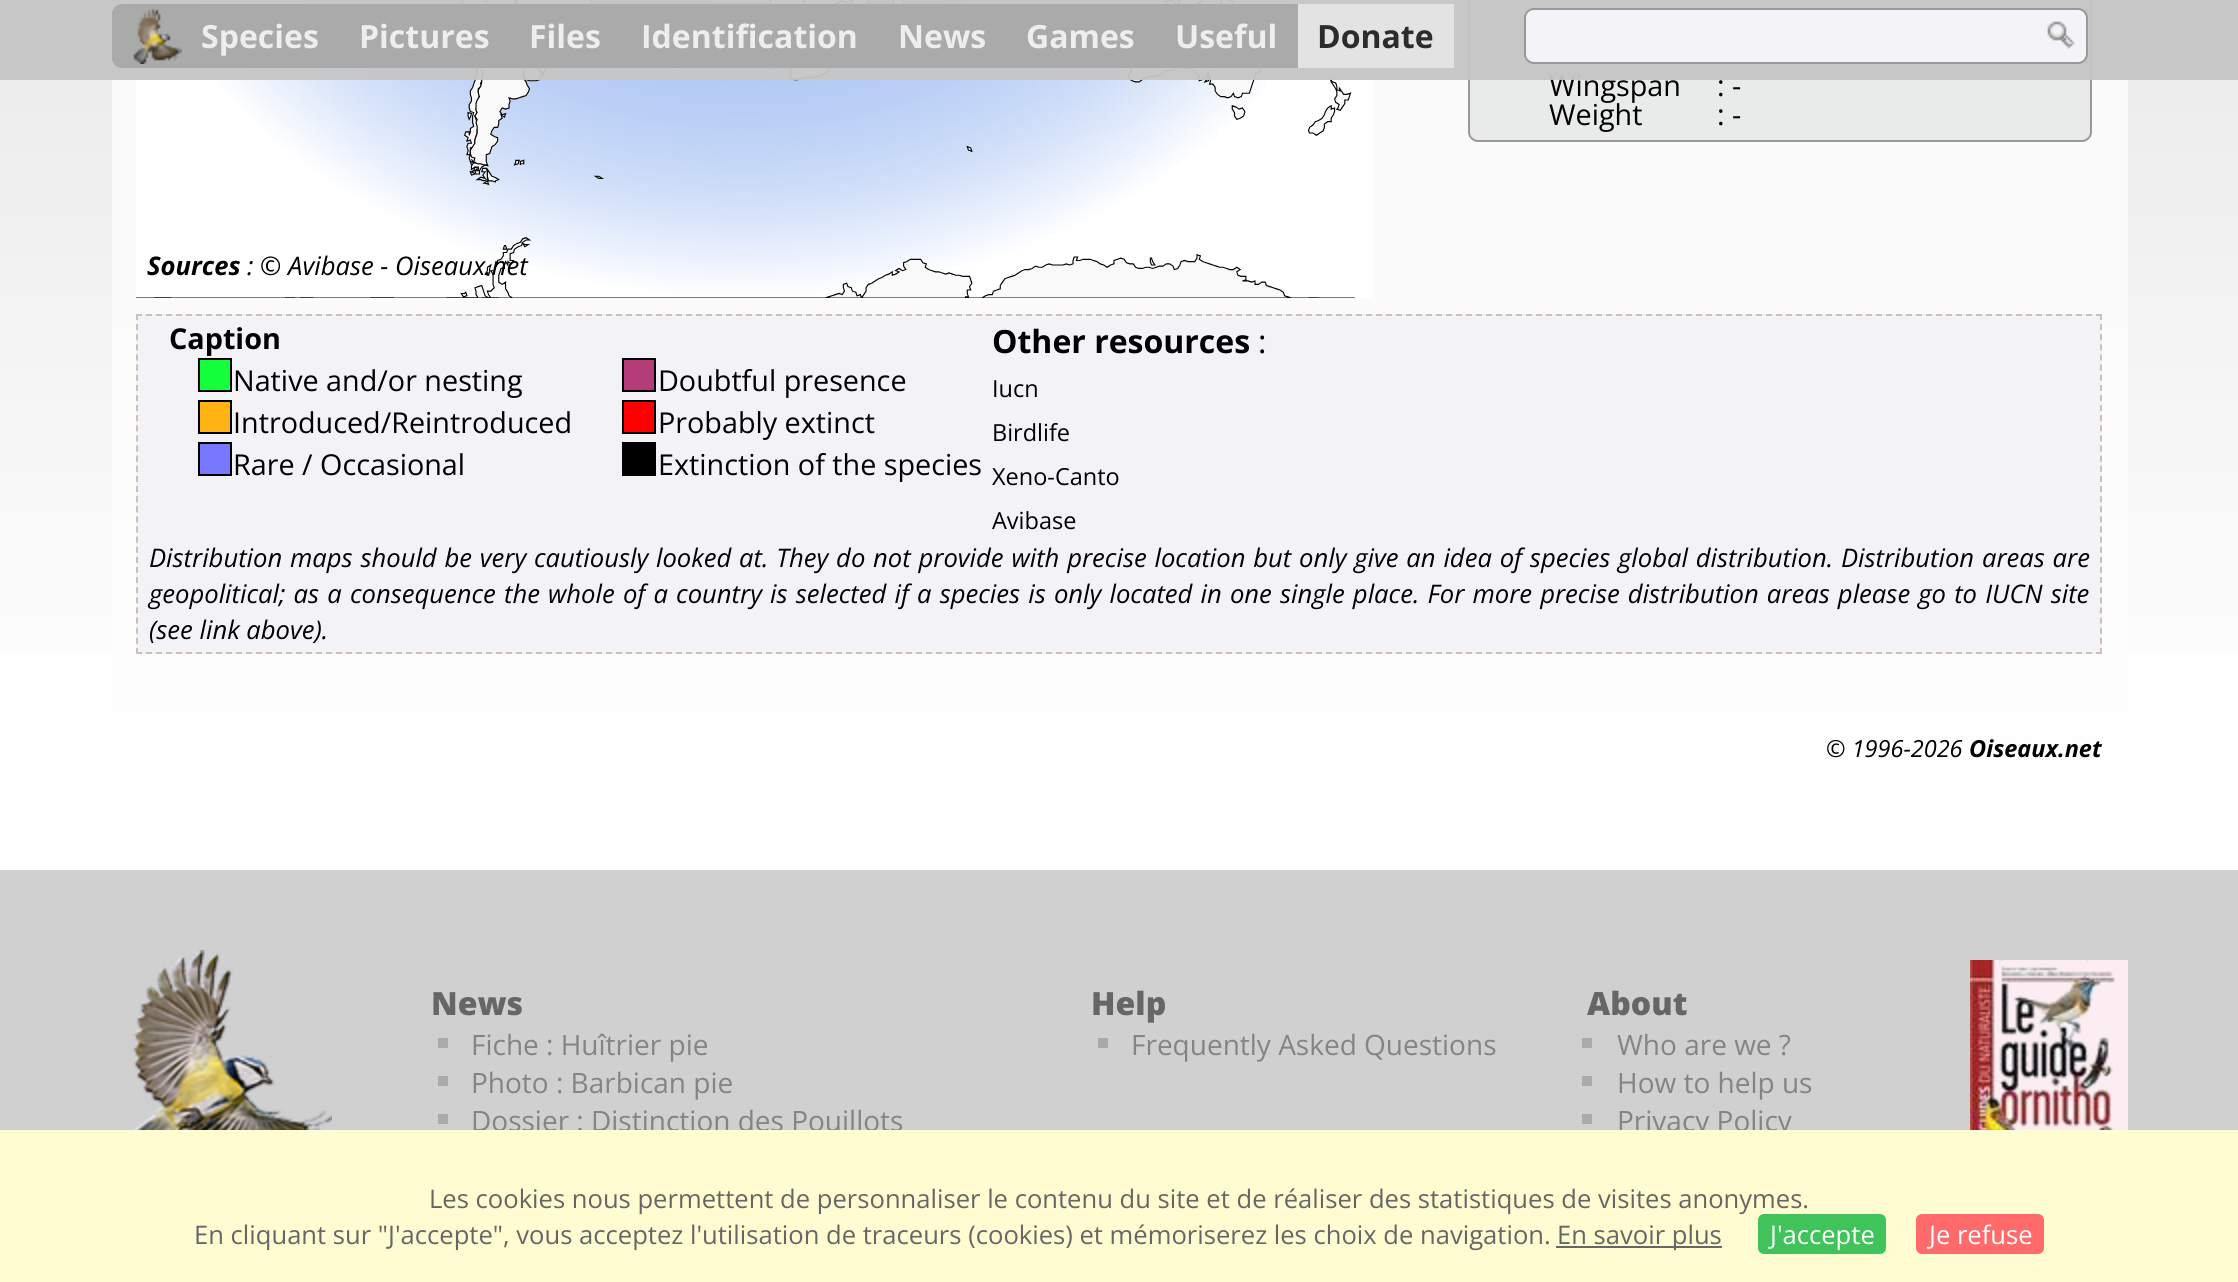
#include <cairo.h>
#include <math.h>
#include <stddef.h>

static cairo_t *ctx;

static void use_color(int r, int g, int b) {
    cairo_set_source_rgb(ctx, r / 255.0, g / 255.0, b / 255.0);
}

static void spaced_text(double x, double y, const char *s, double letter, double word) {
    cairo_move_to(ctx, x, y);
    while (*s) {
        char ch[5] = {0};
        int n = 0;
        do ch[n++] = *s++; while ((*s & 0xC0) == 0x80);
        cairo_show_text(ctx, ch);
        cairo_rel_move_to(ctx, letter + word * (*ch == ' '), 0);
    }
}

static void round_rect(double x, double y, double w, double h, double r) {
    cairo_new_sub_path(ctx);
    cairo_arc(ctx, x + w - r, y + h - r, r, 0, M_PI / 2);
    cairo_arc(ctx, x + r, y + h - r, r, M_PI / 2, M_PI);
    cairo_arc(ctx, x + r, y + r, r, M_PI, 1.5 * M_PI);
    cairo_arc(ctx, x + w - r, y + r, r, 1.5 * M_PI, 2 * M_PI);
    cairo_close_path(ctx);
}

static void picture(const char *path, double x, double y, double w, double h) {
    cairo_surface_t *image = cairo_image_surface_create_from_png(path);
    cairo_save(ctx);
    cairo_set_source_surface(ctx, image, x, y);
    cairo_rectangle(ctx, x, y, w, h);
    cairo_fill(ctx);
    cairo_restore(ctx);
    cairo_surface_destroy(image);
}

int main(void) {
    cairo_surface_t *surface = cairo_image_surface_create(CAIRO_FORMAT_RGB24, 2238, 1282);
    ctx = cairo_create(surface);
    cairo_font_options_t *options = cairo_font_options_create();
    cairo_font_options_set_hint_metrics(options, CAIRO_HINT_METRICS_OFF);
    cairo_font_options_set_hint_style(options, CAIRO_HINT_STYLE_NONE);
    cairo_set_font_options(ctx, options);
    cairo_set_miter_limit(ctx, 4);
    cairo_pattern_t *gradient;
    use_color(255, 255, 255);
    cairo_paint(ctx);
    gradient = cairo_pattern_create_linear(1119, -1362, 1119, 976);
    cairo_pattern_add_color_stop_rgba(gradient, 0, 0.733, 0.733, 0.733, 1);
    cairo_pattern_add_color_stop_rgba(gradient, 0.21, 0.733, 0.733, 0.733, 1);
    cairo_pattern_add_color_stop_rgba(gradient, 0.38, 0.867, 0.867, 0.867, 1);
    cairo_pattern_add_color_stop_rgba(gradient, 0.9, 1, 1, 1, 1);
    cairo_pattern_add_color_stop_rgba(gradient, 1, 1, 1, 1, 1);
    cairo_set_source(ctx, gradient);
    cairo_pattern_destroy(gradient);
    cairo_rectangle(ctx, 0, 0, 2238, 653);
    cairo_fill(ctx);
    gradient = cairo_pattern_create_linear(1120, -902, 1120, 800);
    cairo_pattern_add_color_stop_rgba(gradient, 0, 0.961, 0.961, 0.961, 1);
    cairo_pattern_add_color_stop_rgba(gradient, 1, 0.996, 0.996, 0.996, 1);
    cairo_set_source(ctx, gradient);
    cairo_pattern_destroy(gradient);
    round_rect(112, -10, 2016, 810, 10);
    cairo_fill(ctx);
    use_color(233, 235, 235);
    round_rect(1469, -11, 622, 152, 9);
    cairo_fill_preserve(ctx);
    use_color(153, 153, 153);
    cairo_stroke(ctx);
    cairo_select_font_face(ctx, "Open Sans", CAIRO_FONT_SLANT_NORMAL, CAIRO_FONT_WEIGHT_NORMAL);
    cairo_set_font_size(ctx, 28.75);
    use_color(0, 0, 0);
    cairo_move_to(ctx, 1549, 96);
    cairo_show_text(ctx, "Wingspan");
    picture("img3.png", 136, 0, 1237, 298);
    cairo_set_source_rgba(ctx, 0.776, 0.776, 0.776, 0.95);
    cairo_rectangle(ctx, 0, 0, 2238, 80);
    cairo_fill(ctx);
    use_color(170, 170, 170);
    round_rect(112, 4, 1342, 64, 10);
    cairo_fill(ctx);
    picture("img1.png", 133, 8, 49, 56);
    cairo_select_font_face(ctx, "Open Sans", CAIRO_FONT_SLANT_NORMAL, CAIRO_FONT_WEIGHT_BOLD);
    cairo_set_font_size(ctx, 32);
    use_color(238, 238, 238);
    cairo_move_to(ctx, 201, 48);
    cairo_show_text(ctx, "Species");
    cairo_move_to(ctx, 359, 48);
    cairo_show_text(ctx, "Pictures");
    cairo_move_to(ctx, 529, 48);
    cairo_show_text(ctx, "Files");
    cairo_move_to(ctx, 641, 48);
    cairo_show_text(ctx, "Identification");
    cairo_move_to(ctx, 898, 48);
    cairo_show_text(ctx, "News");
    cairo_move_to(ctx, 1026, 48);
    cairo_show_text(ctx, "Games");
    cairo_move_to(ctx, 1175, 48);
    cairo_show_text(ctx, "Useful");
    use_color(227, 227, 227);
    cairo_rectangle(ctx, 1298, 4, 156, 64);
    cairo_fill(ctx);
    use_color(44, 44, 44);
    cairo_move_to(ctx, 1317, 48);
    cairo_show_text(ctx, "Donate");
    use_color(243, 243, 248);
    round_rect(1525, 9, 562, 54, 9);
    cairo_fill_preserve(ctx);
    use_color(153, 153, 153);
    cairo_stroke(ctx);
    picture("img2.png", 2047, 21, 28, 28);
    cairo_select_font_face(ctx, "Open Sans", CAIRO_FONT_SLANT_NORMAL, CAIRO_FONT_WEIGHT_NORMAL);
    cairo_set_font_size(ctx, 28.75);
    use_color(0, 0, 0);
    cairo_move_to(ctx, 1717, 96);
    cairo_show_text(ctx, ": -");
    cairo_move_to(ctx, 1549, 125);
    cairo_show_text(ctx, "Weight");
    cairo_move_to(ctx, 1717, 125);
    cairo_show_text(ctx, ": -");
    cairo_select_font_face(ctx, "Open Sans", CAIRO_FONT_SLANT_ITALIC, CAIRO_FONT_WEIGHT_BOLD);
    cairo_set_font_size(ctx, 25.6);
    cairo_move_to(ctx, 147, 275);
    cairo_show_text(ctx, "Sources");
    cairo_select_font_face(ctx, "Open Sans", CAIRO_FONT_SLANT_ITALIC, CAIRO_FONT_WEIGHT_NORMAL);
    cairo_move_to(ctx, 247, 275);
    cairo_show_text(ctx, ": © Avibase - Oiseaux.net");
    use_color(243, 242, 247);
    cairo_rectangle(ctx, 136, 314, 1966, 340);
    cairo_fill(ctx);
    cairo_new_path(ctx);
    cairo_move_to(ctx, 136, 315);
    cairo_line_to(ctx, 2102, 315);
    use_color(206, 190, 184);
    cairo_set_dash(ctx, (double[]){6, 4}, 2, 0);
    cairo_stroke(ctx);
    cairo_new_path(ctx);
    cairo_move_to(ctx, 2101, 314);
    cairo_line_to(ctx, 2101, 654);
    cairo_set_dash(ctx, (double[]){6, 4.12}, 2, 0);
    cairo_stroke(ctx);
    cairo_new_path(ctx);
    cairo_move_to(ctx, 136, 653);
    cairo_line_to(ctx, 2102, 653);
    cairo_set_dash(ctx, (double[]){6, 4}, 2, 0);
    cairo_stroke(ctx);
    cairo_new_path(ctx);
    cairo_move_to(ctx, 137, 314);
    cairo_line_to(ctx, 137, 654);
    cairo_set_dash(ctx, (double[]){6, 4.12}, 2, 0);
    cairo_stroke(ctx);
    cairo_select_font_face(ctx, "Open Sans", CAIRO_FONT_SLANT_NORMAL, CAIRO_FONT_WEIGHT_BOLD);
    cairo_set_font_size(ctx, 28.75);
    use_color(0, 0, 0);
    cairo_move_to(ctx, 169, 349);
    cairo_show_text(ctx, "Caption");
    use_color(20, 255, 60);
    cairo_rectangle(ctx, 199, 359, 32, 32);
    cairo_fill_preserve(ctx);
    use_color(0, 0, 0);
    cairo_set_dash(ctx, NULL, 0, 0);
    cairo_stroke(ctx);
    cairo_select_font_face(ctx, "Open Sans", CAIRO_FONT_SLANT_NORMAL, CAIRO_FONT_WEIGHT_NORMAL);
    cairo_move_to(ctx, 233, 391);
    cairo_show_text(ctx, "Native and/or nesting");
    use_color(255, 180, 20);
    cairo_rectangle(ctx, 199, 401, 32, 32);
    cairo_fill_preserve(ctx);
    use_color(0, 0, 0);
    cairo_stroke(ctx);
    cairo_move_to(ctx, 233, 433);
    cairo_show_text(ctx, "Introduced/Reintroduced");
    use_color(120, 120, 255);
    cairo_rectangle(ctx, 199, 443, 32, 32);
    cairo_fill_preserve(ctx);
    use_color(0, 0, 0);
    cairo_stroke(ctx);
    cairo_move_to(ctx, 233, 475);
    cairo_show_text(ctx, "Rare / Occasional");
    use_color(180, 60, 120);
    cairo_rectangle(ctx, 623, 359, 32, 32);
    cairo_fill_preserve(ctx);
    use_color(0, 0, 0);
    cairo_stroke(ctx);
    cairo_move_to(ctx, 658, 391);
    cairo_show_text(ctx, "Doubtful presence");
    use_color(255, 0, 0);
    cairo_rectangle(ctx, 623, 401, 32, 32);
    cairo_fill_preserve(ctx);
    use_color(0, 0, 0);
    cairo_stroke(ctx);
    cairo_move_to(ctx, 658, 433);
    cairo_show_text(ctx, "Probably extinct");
    cairo_rectangle(ctx, 622, 442, 34, 34);
    cairo_fill(ctx);
    cairo_move_to(ctx, 658, 475);
    cairo_show_text(ctx, "Extinction of the species");
    cairo_select_font_face(ctx, "Open Sans", CAIRO_FONT_SLANT_NORMAL, CAIRO_FONT_WEIGHT_BOLD);
    cairo_set_font_size(ctx, 32);
    cairo_move_to(ctx, 992, 353);
    cairo_show_text(ctx, "Other resources");
    cairo_select_font_face(ctx, "Open Sans", CAIRO_FONT_SLANT_NORMAL, CAIRO_FONT_WEIGHT_NORMAL);
    cairo_move_to(ctx, 1258, 353);
    cairo_show_text(ctx, ":");
    cairo_set_font_size(ctx, 23.5);
    cairo_move_to(ctx, 992, 397);
    cairo_show_text(ctx, "Iucn");
    cairo_move_to(ctx, 992, 441);
    cairo_show_text(ctx, "Birdlife");
    cairo_move_to(ctx, 992, 485);
    cairo_show_text(ctx, "Xeno-Canto");
    cairo_move_to(ctx, 992, 529);
    cairo_show_text(ctx, "Avibase");
    cairo_select_font_face(ctx, "Open Sans", CAIRO_FONT_SLANT_ITALIC, CAIRO_FONT_WEIGHT_NORMAL);
    cairo_set_font_size(ctx, 25.6);
    spaced_text(149, 567, "Distribution maps should be very cautiously looked at. They do not provide with precise location but only give an idea of species global distribution. Distribution areas are", 0, 1.15);
    spaced_text(149, 603, "geopolitical; as a consequence the whole of a country is selected if a species is only located in one single place. For more precise distribution areas please go to IUCN site", 0, 1.5);
    cairo_move_to(ctx, 149, 639);
    cairo_show_text(ctx, "(see link above).");
    cairo_set_font_size(ctx, 23.5);
    cairo_move_to(ctx, 1826, 757);
    cairo_show_text(ctx, "© 1996-2026");
    cairo_select_font_face(ctx, "Open Sans", CAIRO_FONT_SLANT_ITALIC, CAIRO_FONT_WEIGHT_BOLD);
    cairo_move_to(ctx, 1969, 757);
    cairo_show_text(ctx, "Oiseaux.net");
    use_color(208, 208, 208);
    cairo_rectangle(ctx, 0, 870, 2238, 260);
    cairo_fill(ctx);
    picture("img4.png", 131, 950, 201, 180);
    cairo_select_font_face(ctx, "Open Sans ExtraBold", CAIRO_FONT_SLANT_NORMAL, CAIRO_FONT_WEIGHT_NORMAL);
    cairo_set_font_size(ctx, 32);
    use_color(102, 102, 102);
    cairo_move_to(ctx, 431, 1015);
    cairo_show_text(ctx, "News");
    use_color(170, 170, 170);
    cairo_rectangle(ctx, 438, 1038, 10, 10);
    cairo_fill(ctx);
    cairo_select_font_face(ctx, "Open Sans", CAIRO_FONT_SLANT_NORMAL, CAIRO_FONT_WEIGHT_NORMAL);
    cairo_set_font_size(ctx, 28);
    use_color(132, 132, 132);
    cairo_move_to(ctx, 471, 1055);
    cairo_show_text(ctx, "Fiche : Huîtrier pie");
    use_color(170, 170, 170);
    cairo_rectangle(ctx, 438, 1076, 10, 10);
    cairo_fill(ctx);
    use_color(132, 132, 132);
    cairo_move_to(ctx, 471, 1093);
    cairo_show_text(ctx, "Photo : Barbican pie");
    use_color(170, 170, 170);
    cairo_rectangle(ctx, 438, 1114, 10, 10);
    cairo_fill(ctx);
    use_color(132, 132, 132);
    cairo_move_to(ctx, 471, 1131);
    cairo_show_text(ctx, "Dossier : Distinction des Pouillots");
    cairo_select_font_face(ctx, "Open Sans ExtraBold", CAIRO_FONT_SLANT_NORMAL, CAIRO_FONT_WEIGHT_NORMAL);
    cairo_set_font_size(ctx, 32);
    use_color(102, 102, 102);
    cairo_move_to(ctx, 1091, 1015);
    cairo_show_text(ctx, "Help");
    use_color(170, 170, 170);
    cairo_rectangle(ctx, 1098, 1038, 10, 10);
    cairo_fill(ctx);
    cairo_select_font_face(ctx, "Open Sans", CAIRO_FONT_SLANT_NORMAL, CAIRO_FONT_WEIGHT_NORMAL);
    cairo_set_font_size(ctx, 28);
    use_color(132, 132, 132);
    cairo_move_to(ctx, 1131, 1055);
    cairo_show_text(ctx, "Frequently Asked Questions");
    cairo_select_font_face(ctx, "Open Sans ExtraBold", CAIRO_FONT_SLANT_NORMAL, CAIRO_FONT_WEIGHT_NORMAL);
    cairo_set_font_size(ctx, 32);
    use_color(102, 102, 102);
    cairo_move_to(ctx, 1587, 1015);
    cairo_show_text(ctx, "About");
    use_color(170, 170, 170);
    cairo_rectangle(ctx, 1582, 1038, 10, 10);
    cairo_fill(ctx);
    cairo_select_font_face(ctx, "Open Sans", CAIRO_FONT_SLANT_NORMAL, CAIRO_FONT_WEIGHT_NORMAL);
    cairo_set_font_size(ctx, 28);
    use_color(132, 132, 132);
    cairo_move_to(ctx, 1617, 1055);
    cairo_show_text(ctx, "Who are we ?");
    use_color(170, 170, 170);
    cairo_rectangle(ctx, 1582, 1076, 10, 10);
    cairo_fill(ctx);
    use_color(132, 132, 132);
    cairo_move_to(ctx, 1617, 1093);
    cairo_show_text(ctx, "How to help us");
    use_color(170, 170, 170);
    cairo_rectangle(ctx, 1582, 1114, 10, 10);
    cairo_fill(ctx);
    use_color(132, 132, 132);
    cairo_move_to(ctx, 1617, 1131);
    cairo_show_text(ctx, "Privacy Policy");
    picture("img5.png", 1970, 960, 158, 170);
    use_color(255, 252, 209);
    cairo_rectangle(ctx, 0, 1130, 2238, 152);
    cairo_fill(ctx);
    cairo_set_font_size(ctx, 25.6);
    use_color(102, 102, 102);
    cairo_move_to(ctx, 429, 1208);
    cairo_show_text(ctx, "Les cookies nous permettent de personnaliser le contenu du site et de réaliser des statistiques de visites anonymes.");
    cairo_move_to(ctx, 194, 1244);
    cairo_show_text(ctx, "En cliquant sur \"J'accepte\", vous acceptez l'utilisation de traceurs (cookies) et mémoriserez les choix de navigation.");
    cairo_rectangle(ctx, 1556, 1246, 166, 2);
    cairo_fill(ctx);
    cairo_move_to(ctx, 1557, 1244);
    cairo_show_text(ctx, "En savoir plus");
    use_color(63, 195, 90);
    round_rect(1758, 1214, 128, 40, 6);
    cairo_fill(ctx);
    use_color(255, 255, 255);
    cairo_move_to(ctx, 1770, 1244);
    cairo_show_text(ctx, "J'accepte");
    use_color(255, 107, 107);
    round_rect(1916, 1214, 128, 40, 6);
    cairo_fill(ctx);
    use_color(255, 255, 255);
    cairo_move_to(ctx, 1929, 1244);
    cairo_show_text(ctx, "Je refuse");
    cairo_surface_write_to_png(surface, "result.png");
    cairo_font_options_destroy(options);
    cairo_destroy(ctx);
    cairo_surface_destroy(surface);
    return 0;
}
